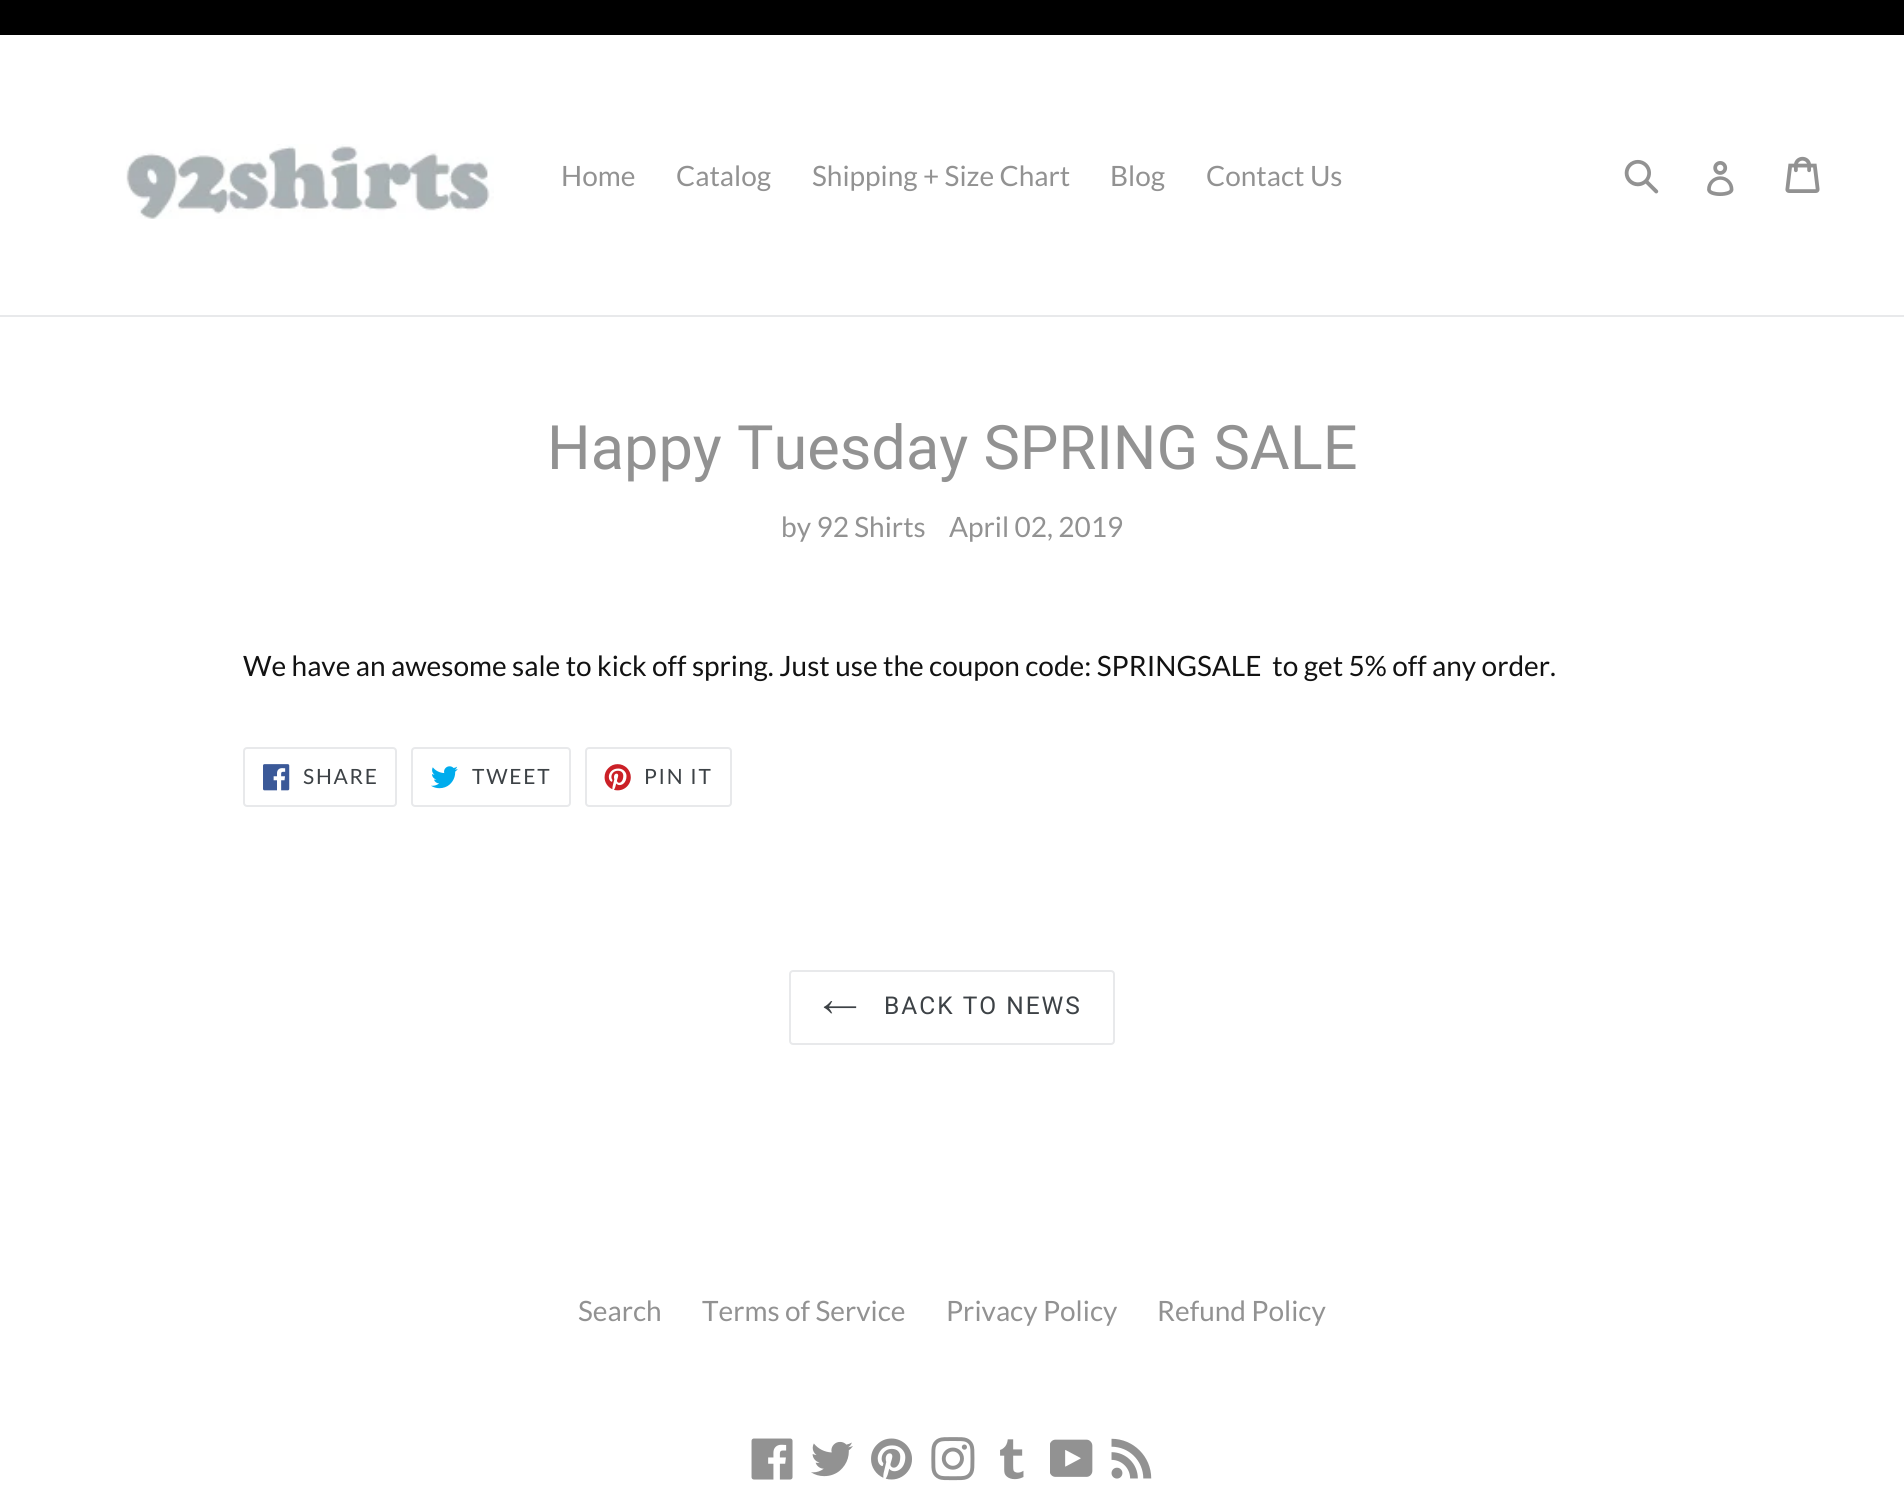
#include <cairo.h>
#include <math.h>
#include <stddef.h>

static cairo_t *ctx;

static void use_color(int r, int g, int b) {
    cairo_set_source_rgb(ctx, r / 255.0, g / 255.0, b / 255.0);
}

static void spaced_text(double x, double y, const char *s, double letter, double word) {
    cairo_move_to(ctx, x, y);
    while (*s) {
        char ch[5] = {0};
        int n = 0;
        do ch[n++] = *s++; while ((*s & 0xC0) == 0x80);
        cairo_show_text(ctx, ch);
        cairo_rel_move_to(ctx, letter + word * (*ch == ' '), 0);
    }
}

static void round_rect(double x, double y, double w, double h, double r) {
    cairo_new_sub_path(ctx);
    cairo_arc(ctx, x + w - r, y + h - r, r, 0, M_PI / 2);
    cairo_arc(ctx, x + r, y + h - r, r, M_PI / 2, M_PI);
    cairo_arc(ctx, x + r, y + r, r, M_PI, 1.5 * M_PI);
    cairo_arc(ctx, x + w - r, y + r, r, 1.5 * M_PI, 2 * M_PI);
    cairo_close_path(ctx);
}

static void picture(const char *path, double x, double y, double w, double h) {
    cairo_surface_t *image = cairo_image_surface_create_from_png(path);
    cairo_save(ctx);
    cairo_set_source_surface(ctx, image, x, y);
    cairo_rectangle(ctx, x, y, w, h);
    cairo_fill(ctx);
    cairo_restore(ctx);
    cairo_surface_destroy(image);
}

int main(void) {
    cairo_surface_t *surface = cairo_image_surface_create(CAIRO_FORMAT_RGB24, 1904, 1492);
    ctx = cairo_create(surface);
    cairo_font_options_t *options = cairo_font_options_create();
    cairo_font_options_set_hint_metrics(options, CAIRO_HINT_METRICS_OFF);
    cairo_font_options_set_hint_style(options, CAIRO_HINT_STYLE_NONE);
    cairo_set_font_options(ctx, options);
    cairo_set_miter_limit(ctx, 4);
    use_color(255, 255, 255);
    cairo_paint(ctx);
    use_color(0, 0, 0);
    cairo_rectangle(ctx, 0, 0, 1904, 35);
    cairo_fill(ctx);
    use_color(232, 233, 235);
    cairo_rectangle(ctx, 0, 315, 1904, 2);
    cairo_fill(ctx);
    picture("img1.png", 126, 144, 368, 75);
    cairo_select_font_face(ctx, "Lato", CAIRO_FONT_SLANT_NORMAL, CAIRO_FONT_WEIGHT_NORMAL);
    cairo_set_font_size(ctx, 28);
    use_color(146, 146, 146);
    cairo_move_to(ctx, 561, 186);
    cairo_show_text(ctx, "Home");
    cairo_move_to(ctx, 676, 186);
    cairo_show_text(ctx, "Catalog");
    cairo_move_to(ctx, 812, 186);
    cairo_show_text(ctx, "Shipping + Size Chart");
    cairo_move_to(ctx, 1110, 186);
    cairo_show_text(ctx, "Blog");
    cairo_move_to(ctx, 1206, 186);
    cairo_show_text(ctx, "Contact Us");
    picture("img2.png", 1624, 159, 35, 35);
    picture("img3.png", 1707, 161, 27, 35);
    picture("img4.png", 1785, 156, 35, 37);
    cairo_select_font_face(ctx, "Roboto", CAIRO_FONT_SLANT_NORMAL, CAIRO_FONT_WEIGHT_NORMAL);
    cairo_set_font_size(ctx, 61.25);
    cairo_move_to(ctx, 547, 469);
    cairo_show_text(ctx, "Happy Tuesday SPRING SALE");
    cairo_select_font_face(ctx, "Lato", CAIRO_FONT_SLANT_NORMAL, CAIRO_FONT_WEIGHT_NORMAL);
    cairo_set_font_size(ctx, 28);
    cairo_move_to(ctx, 781, 537);
    cairo_show_text(ctx, "by 92 Shirts");
    cairo_move_to(ctx, 949, 537);
    cairo_show_text(ctx, "April 02, 2019");
    use_color(18, 18, 18);
    cairo_move_to(ctx, 243, 676);
    cairo_show_text(ctx, "We have an awesome sale to kick off spring. Just use the coupon code: SPRINGSALE  to get 5% off any order.");
    round_rect(244, 748, 152, 58, 3);
    use_color(232, 233, 235);
    cairo_stroke(ctx);
    picture("img5.png", 263, 764, 27, 27);
    cairo_set_font_size(ctx, 21);
    use_color(61, 66, 70);
    spaced_text(303, 784, "SHARE", 1.75, 0);
    round_rect(412, 748, 158, 58, 3);
    use_color(232, 233, 235);
    cairo_stroke(ctx);
    picture("img6.png", 431, 766, 27, 23);
    use_color(61, 66, 70);
    spaced_text(472, 784, "TWEET", 1.75, 0);
    round_rect(586, 748, 145, 58, 3);
    use_color(232, 233, 235);
    cairo_stroke(ctx);
    picture("img7.png", 604, 764, 27, 27);
    use_color(61, 66, 70);
    spaced_text(644, 784, "PIN IT", 1.75, 0);
    round_rect(790, 971, 324, 73, 3);
    use_color(232, 233, 235);
    cairo_stroke(ctx);
    picture("img8.png", 823, 1001, 34, 13);
    cairo_select_font_face(ctx, "Roboto", CAIRO_FONT_SLANT_NORMAL, CAIRO_FONT_WEIGHT_NORMAL);
    cairo_set_font_size(ctx, 24.5);
    use_color(61, 66, 70);
    spaced_text(884, 1014, "BACK TO NEWS", 2, 0);
    cairo_select_font_face(ctx, "Lato", CAIRO_FONT_SLANT_NORMAL, CAIRO_FONT_WEIGHT_NORMAL);
    cairo_set_font_size(ctx, 28);
    use_color(146, 146, 146);
    cairo_move_to(ctx, 578, 1321);
    cairo_show_text(ctx, "Search");
    cairo_move_to(ctx, 702, 1321);
    cairo_show_text(ctx, "Terms of Service");
    cairo_move_to(ctx, 946, 1321);
    cairo_show_text(ctx, "Privacy Policy");
    cairo_move_to(ctx, 1157, 1321);
    cairo_show_text(ctx, "Refund Policy");
    picture("img9.png", 751, 1438, 42, 42);
    picture("img10.png", 811, 1441, 42, 36);
    picture("img11.png", 871, 1438, 41, 42);
    picture("img12.png", 931, 1437, 44, 44);
    picture("img13.png", 1000, 1439, 24, 41);
    picture("img14.png", 1050, 1439, 43, 38);
    picture("img15.png", 1111, 1438, 41, 41);
    cairo_surface_write_to_png(surface, "result.png");
    cairo_font_options_destroy(options);
    cairo_destroy(ctx);
    cairo_surface_destroy(surface);
    return 0;
}
